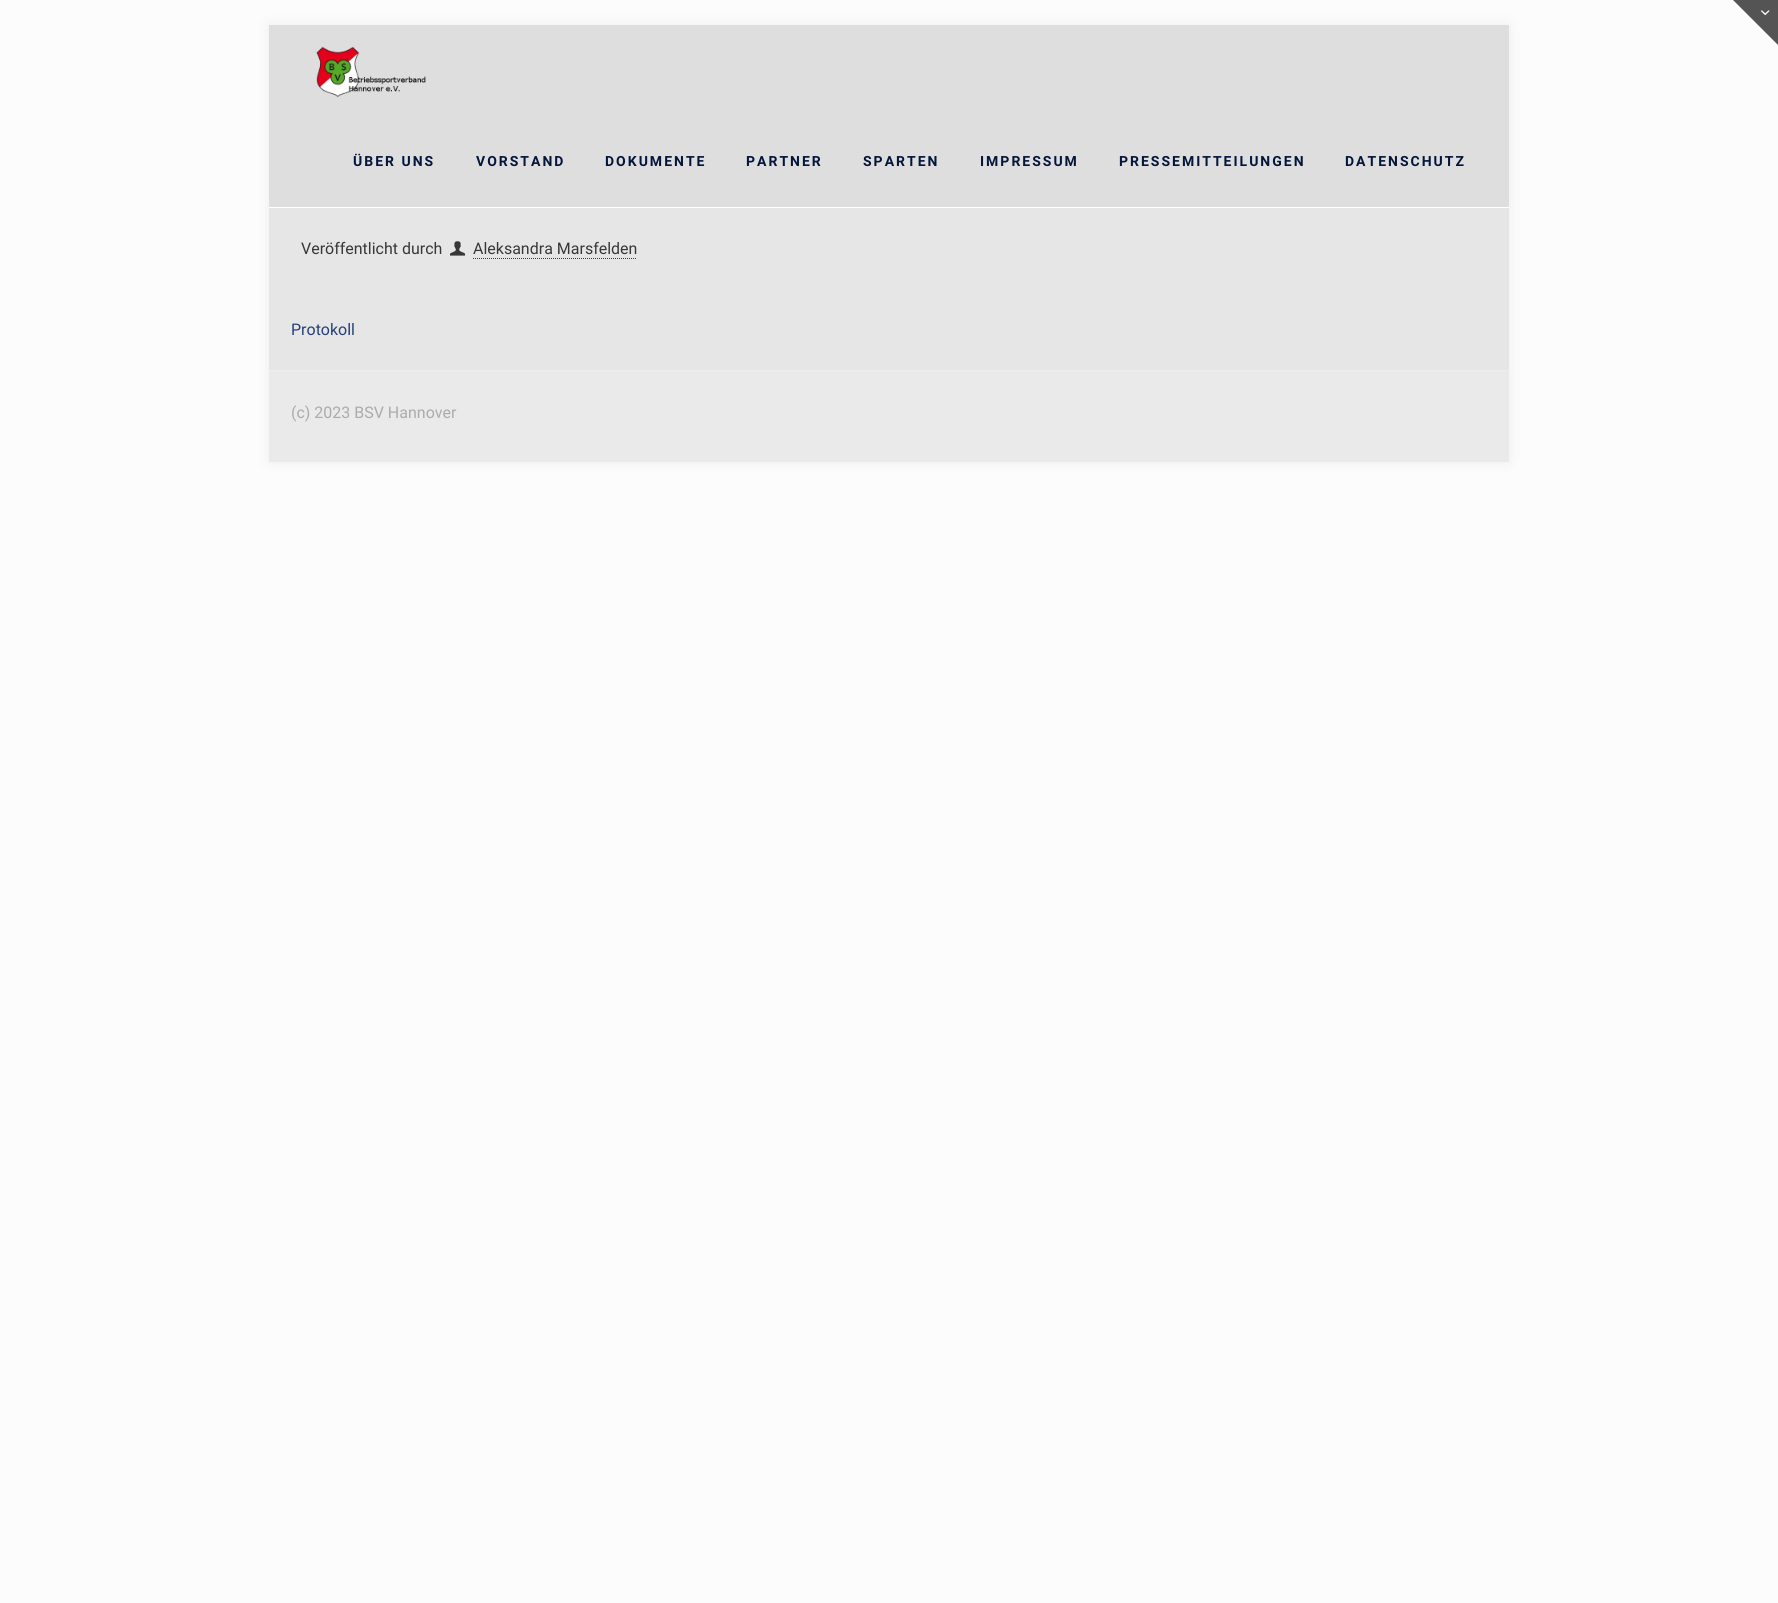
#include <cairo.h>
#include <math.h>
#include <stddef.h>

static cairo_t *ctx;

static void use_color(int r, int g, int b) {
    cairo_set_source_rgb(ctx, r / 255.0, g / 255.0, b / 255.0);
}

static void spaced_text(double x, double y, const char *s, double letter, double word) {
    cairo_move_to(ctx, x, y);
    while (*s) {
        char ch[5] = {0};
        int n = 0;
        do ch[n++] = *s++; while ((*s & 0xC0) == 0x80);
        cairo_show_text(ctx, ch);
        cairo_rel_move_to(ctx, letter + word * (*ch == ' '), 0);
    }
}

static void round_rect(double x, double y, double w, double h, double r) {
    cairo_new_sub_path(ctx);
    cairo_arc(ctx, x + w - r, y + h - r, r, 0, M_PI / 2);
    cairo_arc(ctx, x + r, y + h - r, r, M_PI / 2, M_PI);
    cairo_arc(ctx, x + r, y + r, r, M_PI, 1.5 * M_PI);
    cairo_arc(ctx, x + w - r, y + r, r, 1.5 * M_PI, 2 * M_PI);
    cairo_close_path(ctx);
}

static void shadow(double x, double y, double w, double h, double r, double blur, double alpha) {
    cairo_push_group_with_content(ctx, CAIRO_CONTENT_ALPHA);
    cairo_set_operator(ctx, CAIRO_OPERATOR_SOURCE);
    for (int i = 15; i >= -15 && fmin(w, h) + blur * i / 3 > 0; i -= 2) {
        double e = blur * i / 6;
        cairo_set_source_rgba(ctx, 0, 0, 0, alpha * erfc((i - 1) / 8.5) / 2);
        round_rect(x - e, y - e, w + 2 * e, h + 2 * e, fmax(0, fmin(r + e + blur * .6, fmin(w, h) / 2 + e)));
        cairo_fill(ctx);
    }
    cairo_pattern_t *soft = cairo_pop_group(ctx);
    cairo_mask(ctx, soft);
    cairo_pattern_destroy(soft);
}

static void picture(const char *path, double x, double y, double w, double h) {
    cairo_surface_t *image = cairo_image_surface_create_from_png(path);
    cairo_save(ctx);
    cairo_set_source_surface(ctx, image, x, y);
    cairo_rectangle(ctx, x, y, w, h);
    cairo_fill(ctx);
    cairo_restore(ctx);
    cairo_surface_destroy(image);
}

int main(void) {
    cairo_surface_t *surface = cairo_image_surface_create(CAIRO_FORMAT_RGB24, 1778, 1603);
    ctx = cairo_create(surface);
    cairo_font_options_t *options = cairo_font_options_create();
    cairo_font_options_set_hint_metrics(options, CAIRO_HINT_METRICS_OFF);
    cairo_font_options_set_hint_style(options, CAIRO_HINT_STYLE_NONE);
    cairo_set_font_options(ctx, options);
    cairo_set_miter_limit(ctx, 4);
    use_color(252, 252, 252);
    cairo_paint(ctx);
    use_color(84, 84, 84);
    cairo_new_path(ctx);
    cairo_move_to(ctx, 1778, 0);
    cairo_line_to(ctx, 1778, 45);
    cairo_line_to(ctx, 1733, 0);
    cairo_close_path(ctx);
    cairo_fill(ctx);
    picture("img1.png", 1761, 10, 9, 5);
    use_color(0, 0, 0);
    shadow(269, 25, 1240, 437, 0, 7.5, 0.06);
    use_color(230, 230, 230);
    cairo_rectangle(ctx, 269, 208, 1240, 162);
    cairo_fill(ctx);
    use_color(222, 222, 222);
    cairo_rectangle(ctx, 269, 25, 1240, 182);
    cairo_fill(ctx);
    use_color(255, 255, 255);
    cairo_rectangle(ctx, 269, 207, 1240, 1);
    cairo_fill(ctx);
    picture("img2.png", 316, 46, 110, 52);
    cairo_select_font_face(ctx, "Roboto", CAIRO_FONT_SLANT_NORMAL, CAIRO_FONT_WEIGHT_BOLD);
    cairo_set_font_size(ctx, 14);
    use_color(3, 21, 58);
    spaced_text(353, 166, "ÜBER UNS", 2, 0);
    spaced_text(476, 166, "VORSTAND", 2, 0);
    spaced_text(605, 166, "DOKUMENTE", 2, 0);
    spaced_text(746, 166, "PARTNER", 2, 0);
    spaced_text(863, 166, "SPARTEN", 2, 0);
    spaced_text(980, 166, "IMPRESSUM", 2, 0);
    spaced_text(1119, 166, "PRESSEMITTEILUNGEN", 2, 0);
    spaced_text(1345, 166, "DATENSCHUTZ", 2, 0);
    cairo_select_font_face(ctx, "Roboto", CAIRO_FONT_SLANT_NORMAL, CAIRO_FONT_WEIGHT_NORMAL);
    cairo_set_font_size(ctx, 16);
    use_color(55, 55, 55);
    cairo_move_to(ctx, 301, 254);
    cairo_show_text(ctx, "Veröffentlicht durch");
    picture("img3.png", 450, 241, 16, 15);
    cairo_move_to(ctx, 473, 254);
    cairo_show_text(ctx, "Aleksandra Marsfelden");
    cairo_new_path(ctx);
    cairo_move_to(ctx, 473, 258.5);
    cairo_line_to(ctx, 637, 258.5);
    cairo_set_line_width(ctx, 1);
    cairo_set_dash(ctx, (double[]){1, 1}, 2, 0);
    cairo_stroke(ctx);
    use_color(37, 64, 119);
    cairo_move_to(ctx, 291, 335);
    cairo_show_text(ctx, "Protokoll");
    use_color(236, 236, 236);
    cairo_rectangle(ctx, 269, 370, 1240, 2);
    cairo_fill(ctx);
    use_color(234, 234, 234);
    cairo_rectangle(ctx, 269, 372, 1240, 90);
    cairo_fill(ctx);
    use_color(171, 171, 171);
    cairo_move_to(ctx, 291, 418);
    cairo_show_text(ctx, "(c) 2023 BSV Hannover");
    cairo_surface_write_to_png(surface, "result.png");
    cairo_font_options_destroy(options);
    cairo_destroy(ctx);
    cairo_surface_destroy(surface);
    return 0;
}
